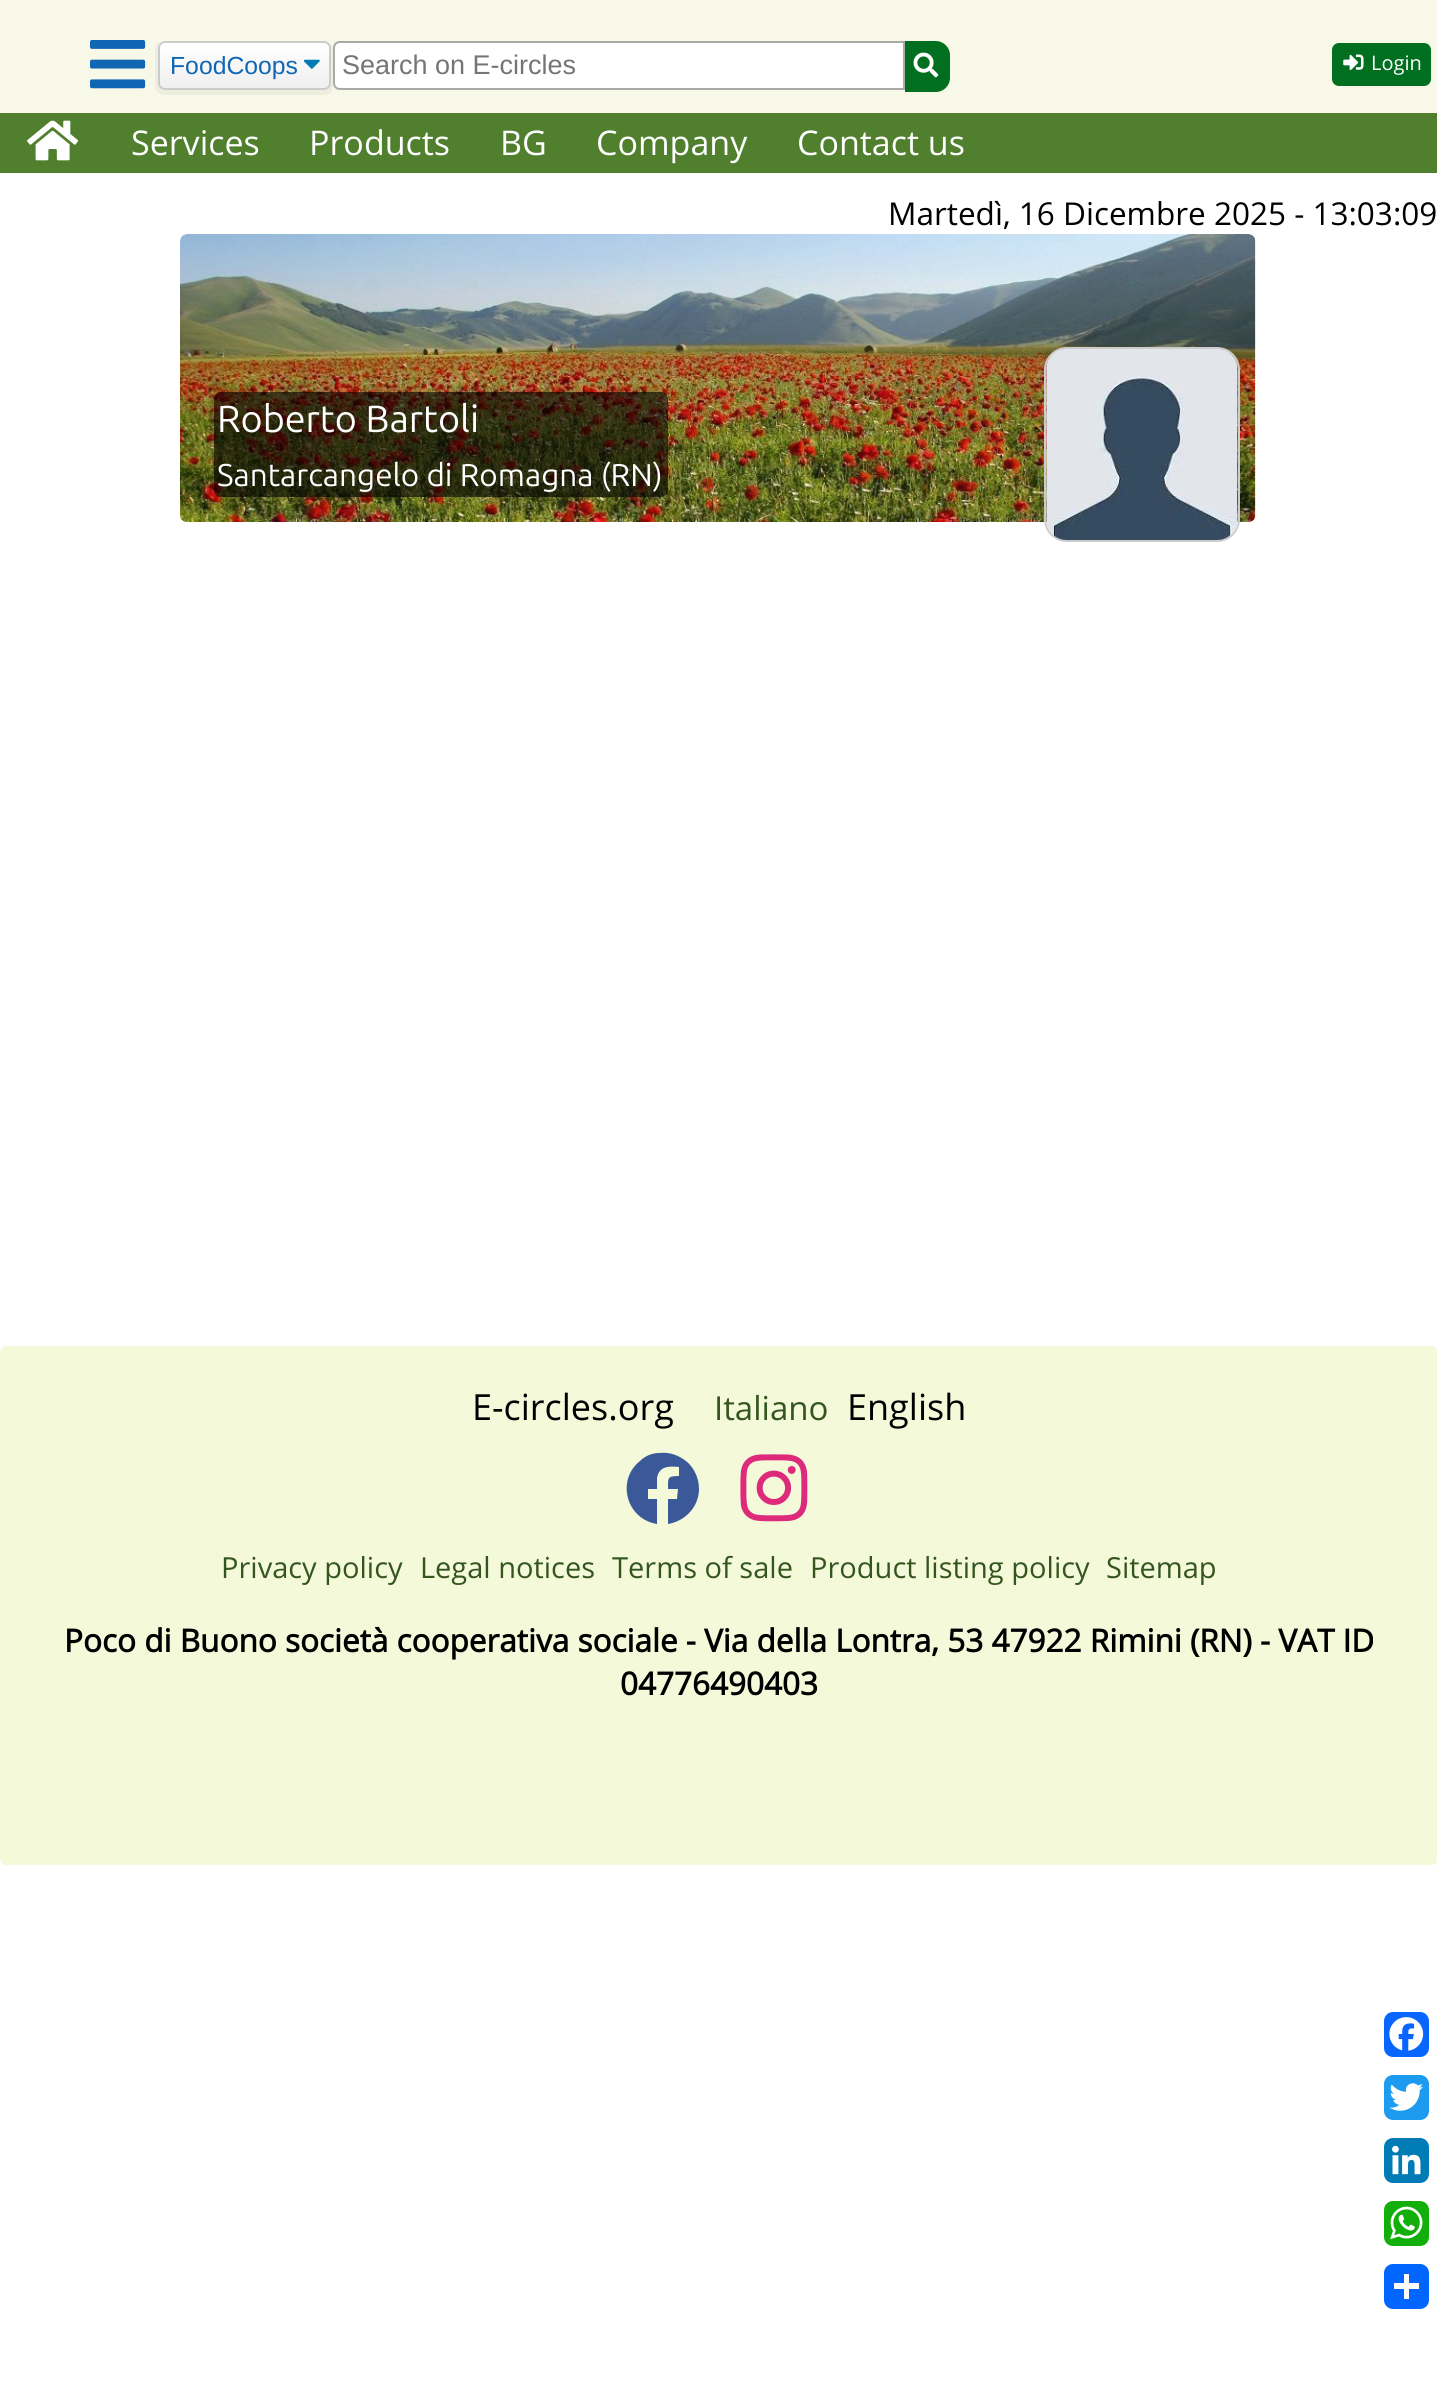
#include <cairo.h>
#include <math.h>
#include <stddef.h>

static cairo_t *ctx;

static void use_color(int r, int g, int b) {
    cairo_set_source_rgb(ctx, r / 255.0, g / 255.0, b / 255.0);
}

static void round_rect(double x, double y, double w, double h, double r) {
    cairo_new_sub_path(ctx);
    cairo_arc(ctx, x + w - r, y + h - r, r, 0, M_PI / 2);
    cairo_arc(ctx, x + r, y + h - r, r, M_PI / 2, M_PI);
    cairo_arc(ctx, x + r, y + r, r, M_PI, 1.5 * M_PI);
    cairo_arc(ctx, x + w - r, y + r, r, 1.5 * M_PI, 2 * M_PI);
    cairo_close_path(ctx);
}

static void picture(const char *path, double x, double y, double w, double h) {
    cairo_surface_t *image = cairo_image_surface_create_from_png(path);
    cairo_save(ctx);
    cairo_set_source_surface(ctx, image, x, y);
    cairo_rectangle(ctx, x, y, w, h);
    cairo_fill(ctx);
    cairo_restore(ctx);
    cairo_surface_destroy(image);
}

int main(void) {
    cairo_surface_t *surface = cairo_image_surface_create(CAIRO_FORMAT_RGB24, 1437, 2392);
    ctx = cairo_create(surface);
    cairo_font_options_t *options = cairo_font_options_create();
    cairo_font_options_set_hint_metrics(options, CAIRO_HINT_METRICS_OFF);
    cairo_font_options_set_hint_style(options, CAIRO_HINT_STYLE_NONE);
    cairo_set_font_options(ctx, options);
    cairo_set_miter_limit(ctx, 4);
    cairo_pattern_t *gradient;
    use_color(255, 255, 255);
    cairo_paint(ctx);
    use_color(248, 248, 232);
    cairo_rectangle(ctx, 0, 0, 1437, 113);
    cairo_fill(ctx);
    picture("img1.png", 90, 40, 56, 49);
    use_color(238, 238, 223);
    cairo_new_path(ctx);
    cairo_move_to(ctx, 160, 42);
    cairo_curve_to(ctx, 157, 43, 155, 46, 155, 50);
    cairo_line_to(ctx, 155, 86);
    cairo_curve_to(ctx, 155, 91, 159, 95, 164, 95);
    cairo_line_to(ctx, 324, 95);
    cairo_curve_to(ctx, 329, 95, 333, 91, 333, 86);
    cairo_line_to(ctx, 333, 50);
    cairo_curve_to(ctx, 333, 47, 331, 44, 328, 42);
    cairo_curve_to(ctx, 330, 43, 331, 45, 331, 47);
    cairo_line_to(ctx, 331, 83);
    cairo_curve_to(ctx, 331, 87, 328, 90, 324, 90);
    cairo_line_to(ctx, 164, 90);
    cairo_curve_to(ctx, 161, 90, 158, 87, 158, 83);
    cairo_line_to(ctx, 158, 47);
    cairo_curve_to(ctx, 158, 45, 159, 43, 160, 42);
    cairo_close_path(ctx);
    cairo_fill(ctx);
    cairo_save(ctx);
    round_rect(158, 41, 173, 49, 7);
    cairo_clip(ctx);
    gradient = cairo_pattern_create_linear(244, 43, 244, 88);
    cairo_pattern_add_color_stop_rgba(gradient, 0, 1, 1, 1, 1);
    cairo_pattern_add_color_stop_rgba(gradient, 1, 0.937, 0.937, 0.937, 1);
    cairo_set_source(ctx, gradient);
    cairo_pattern_destroy(gradient);
    cairo_rectangle(ctx, 158, 43, 173, 45);
    cairo_fill(ctx);
    cairo_restore(ctx);
    picture("img2.png", 304, 59, 16, 10);
    round_rect(159, 42, 171, 47, 6);
    use_color(204, 204, 204);
    cairo_stroke(ctx);
    cairo_select_font_face(ctx, "Liberation Sans", CAIRO_FONT_SLANT_NORMAL, CAIRO_FONT_WEIGHT_NORMAL);
    cairo_set_font_size(ctx, 24.75);
    use_color(16, 102, 179);
    cairo_move_to(ctx, 170, 74);
    cairo_show_text(ctx, "FoodCoops");
    use_color(255, 255, 255);
    cairo_new_path(ctx);
    cairo_move_to(ctx, 340, 42);
    cairo_line_to(ctx, 904, 42);
    cairo_line_to(ctx, 904, 89);
    cairo_line_to(ctx, 340, 89);
    cairo_curve_to(ctx, 336.5, 89, 334, 86.5, 334, 83);
    cairo_line_to(ctx, 334, 48);
    cairo_curve_to(ctx, 334, 44.5, 336.5, 42, 340, 42);
    cairo_close_path(ctx);
    cairo_fill_preserve(ctx);
    use_color(170, 170, 170);
    cairo_stroke(ctx);
    cairo_set_font_size(ctx, 27);
    use_color(117, 117, 117);
    cairo_move_to(ctx, 342, 74);
    cairo_show_text(ctx, "Search on E-circles");
    use_color(0, 112, 32);
    cairo_new_path(ctx);
    cairo_move_to(ctx, 905, 41);
    cairo_line_to(ctx, 936, 41);
    cairo_curve_to(ctx, 943.5, 41, 950, 47.5, 950, 55);
    cairo_line_to(ctx, 950, 78);
    cairo_curve_to(ctx, 950, 85.5, 943.5, 92, 936, 92);
    cairo_line_to(ctx, 905, 92);
    cairo_close_path(ctx);
    cairo_fill(ctx);
    picture("img3.png", 913, 52, 26, 26);
    round_rect(1332, 43, 99, 43, 7);
    cairo_fill(ctx);
    picture("img4.png", 1343, 54, 21, 16);
    cairo_select_font_face(ctx, "Open Sans", CAIRO_FONT_SLANT_NORMAL, CAIRO_FONT_WEIGHT_NORMAL);
    cairo_set_font_size(ctx, 20);
    use_color(255, 255, 255);
    cairo_move_to(ctx, 1371, 70);
    cairo_show_text(ctx, "Login");
    use_color(80, 127, 45);
    cairo_rectangle(ctx, 0, 113, 1437, 60);
    cairo_fill(ctx);
    picture("img5.png", 27, 120, 52, 41);
    cairo_set_font_size(ctx, 34);
    use_color(255, 255, 255);
    cairo_move_to(ctx, 131, 155);
    cairo_show_text(ctx, "Services");
    cairo_move_to(ctx, 309, 155);
    cairo_show_text(ctx, "Products");
    cairo_move_to(ctx, 500, 155);
    cairo_show_text(ctx, "BG");
    cairo_move_to(ctx, 596, 155);
    cairo_show_text(ctx, "Company");
    cairo_move_to(ctx, 797, 155);
    cairo_show_text(ctx, "Contact us");
    cairo_set_font_size(ctx, 31.5);
    use_color(0, 0, 0);
    cairo_move_to(ctx, 888, 225);
    cairo_show_text(ctx, "Martedì, 16 Dicembre 2025 - 13:03:09");
    picture("img6.png", 180, 234, 1076, 288);
    cairo_set_source_rgba(ctx, 0, 0, 0, 0.6);
    round_rect(214, 392, 454, 105, 7);
    cairo_fill(ctx);
    cairo_select_font_face(ctx, "Ubuntu", CAIRO_FONT_SLANT_NORMAL, CAIRO_FONT_WEIGHT_NORMAL);
    cairo_set_font_size(ctx, 37.75);
    use_color(255, 255, 255);
    cairo_move_to(ctx, 217, 432);
    cairo_show_text(ctx, "Roberto Bartoli");
    cairo_set_font_size(ctx, 31.5);
    cairo_move_to(ctx, 217, 486);
    cairo_show_text(ctx, "Santarcangelo di Romagna (RN)");
    round_rect(1045, 348, 194, 193, 22);
    use_color(204, 204, 204);
    cairo_stroke(ctx);
    picture("img7.png", 1046, 349, 192, 191);
    use_color(243, 249, 217);
    round_rect(0, 1346, 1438, 519, 7);
    cairo_fill(ctx);
    cairo_select_font_face(ctx, "Open Sans", CAIRO_FONT_SLANT_NORMAL, CAIRO_FONT_WEIGHT_NORMAL);
    cairo_set_font_size(ctx, 36);
    use_color(0, 0, 0);
    cairo_move_to(ctx, 472, 1420);
    cairo_show_text(ctx, "E-circles.org");
    cairo_set_font_size(ctx, 33);
    use_color(53, 85, 30);
    cairo_move_to(ctx, 714, 1420);
    cairo_show_text(ctx, "Italiano");
    cairo_set_font_size(ctx, 36);
    use_color(0, 0, 0);
    cairo_move_to(ctx, 847, 1420);
    cairo_show_text(ctx, "English");
    use_color(59, 89, 152);
    cairo_new_path(ctx);
    cairo_move_to(ctx, 699, 1489);
    cairo_curve_to(ctx, 699, 1506, 686, 1521, 668, 1524);
    cairo_line_to(ctx, 668, 1499);
    cairo_line_to(ctx, 677, 1499);
    cairo_line_to(ctx, 678, 1489);
    cairo_line_to(ctx, 668, 1489);
    cairo_curve_to(ctx, 668, 1478, 667, 1476, 679, 1476);
    cairo_line_to(ctx, 679, 1467);
    cairo_curve_to(ctx, 669, 1466, 659, 1466, 657, 1478);
    cairo_line_to(ctx, 657, 1489);
    cairo_line_to(ctx, 648, 1489);
    cairo_line_to(ctx, 648, 1499);
    cairo_line_to(ctx, 657, 1499);
    cairo_line_to(ctx, 657, 1524);
    cairo_curve_to(ctx, 626, 1519, 616, 1480, 640, 1461);
    cairo_curve_to(ctx, 645, 1456, 652, 1453, 659, 1453);
    cairo_curve_to(ctx, 667, 1452, 676, 1454, 683, 1459);
    cairo_curve_to(ctx, 693, 1465, 699, 1477, 699, 1489);
    cairo_close_path(ctx);
    cairo_fill(ctx);
    picture("img8.png", 740, 1454, 68, 68);
    cairo_set_font_size(ctx, 29);
    use_color(53, 85, 30);
    cairo_move_to(ctx, 221, 1578);
    cairo_show_text(ctx, "Privacy policy");
    cairo_move_to(ctx, 420, 1578);
    cairo_show_text(ctx, "Legal notices");
    cairo_move_to(ctx, 612, 1578);
    cairo_show_text(ctx, "Terms of sale");
    cairo_move_to(ctx, 810, 1578);
    cairo_show_text(ctx, "Product listing policy");
    cairo_move_to(ctx, 1106, 1578);
    cairo_show_text(ctx, "Sitemap");
    cairo_select_font_face(ctx, "Open Sans", CAIRO_FONT_SLANT_NORMAL, CAIRO_FONT_WEIGHT_BOLD);
    cairo_set_font_size(ctx, 31.5);
    use_color(0, 0, 0);
    cairo_move_to(ctx, 64, 1652);
    cairo_show_text(ctx, "Poco di Buono società cooperativa sociale - Via della Lontra, 53 47922 Rimini (RN) - VAT ID");
    cairo_move_to(ctx, 620, 1695);
    cairo_show_text(ctx, "04776490403");
    use_color(8, 102, 255);
    round_rect(1384, 2012, 45, 45, 9);
    cairo_fill(ctx);
    picture("img9.png", 1389, 2017, 35, 34);
    use_color(29, 155, 240);
    round_rect(1384, 2075, 45, 45, 9);
    cairo_fill(ctx);
    picture("img10.png", 1389, 2083, 34, 28);
    use_color(0, 123, 181);
    round_rect(1384, 2138, 45, 45, 9);
    cairo_fill(ctx);
    picture("img11.png", 1392, 2145, 29, 30);
    use_color(18, 175, 10);
    round_rect(1384, 2201, 45, 45, 9);
    cairo_fill(ctx);
    picture("img12.png", 1390, 2206, 33, 34);
    use_color(1, 102, 255);
    round_rect(1384, 2264, 45, 45, 9);
    cairo_fill(ctx);
    use_color(255, 255, 255);
    cairo_rectangle(ctx, 1404, 2274, 5, 25);
    cairo_fill(ctx);
    cairo_rectangle(ctx, 1394, 2283, 25, 6);
    cairo_fill(ctx);
    cairo_surface_write_to_png(surface, "result.png");
    cairo_font_options_destroy(options);
    cairo_destroy(ctx);
    cairo_surface_destroy(surface);
    return 0;
}
